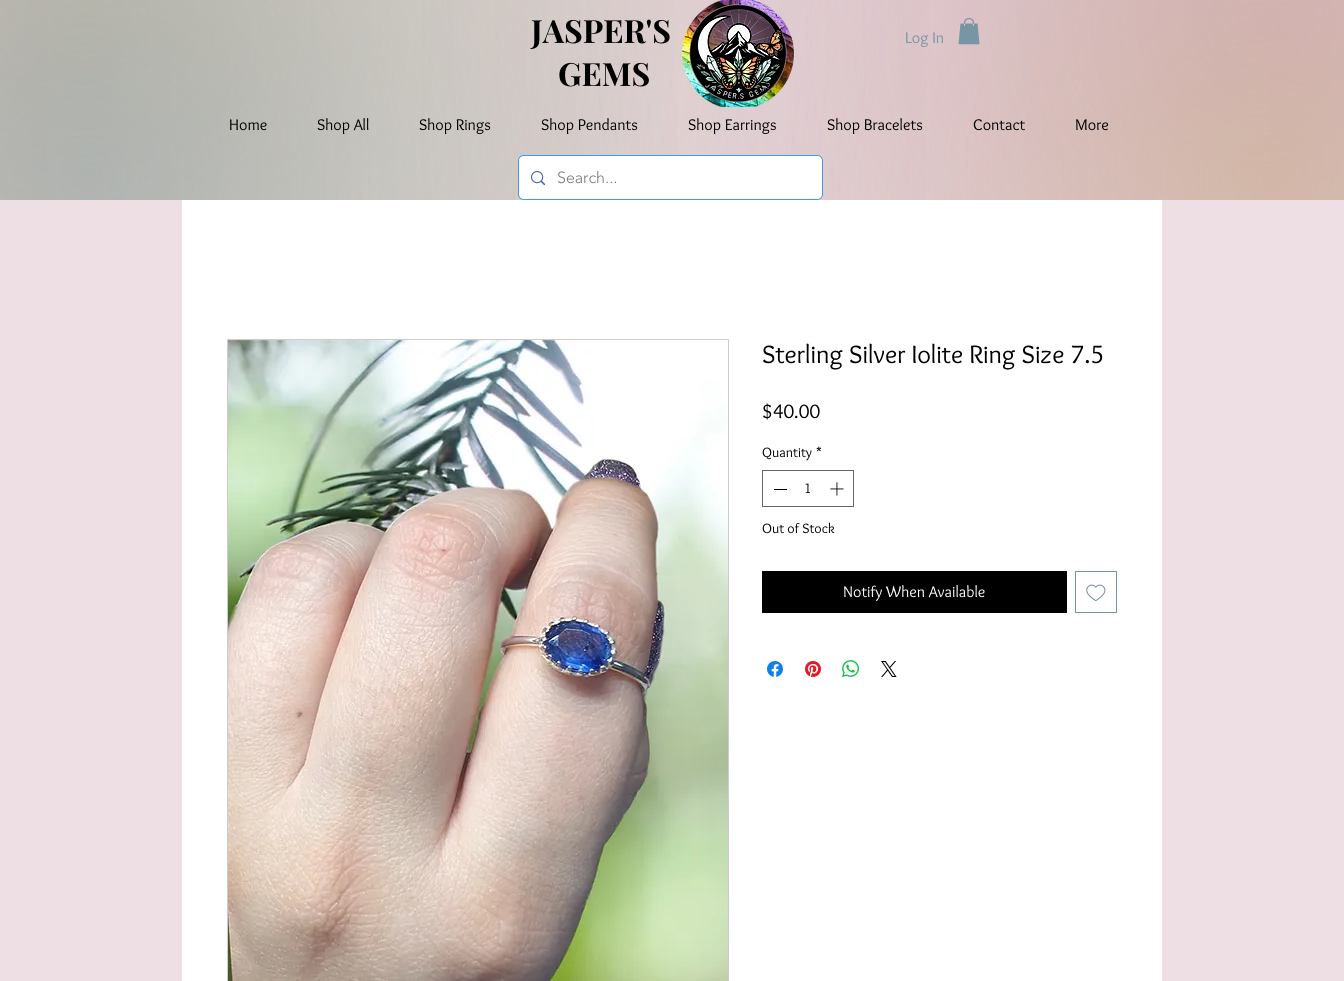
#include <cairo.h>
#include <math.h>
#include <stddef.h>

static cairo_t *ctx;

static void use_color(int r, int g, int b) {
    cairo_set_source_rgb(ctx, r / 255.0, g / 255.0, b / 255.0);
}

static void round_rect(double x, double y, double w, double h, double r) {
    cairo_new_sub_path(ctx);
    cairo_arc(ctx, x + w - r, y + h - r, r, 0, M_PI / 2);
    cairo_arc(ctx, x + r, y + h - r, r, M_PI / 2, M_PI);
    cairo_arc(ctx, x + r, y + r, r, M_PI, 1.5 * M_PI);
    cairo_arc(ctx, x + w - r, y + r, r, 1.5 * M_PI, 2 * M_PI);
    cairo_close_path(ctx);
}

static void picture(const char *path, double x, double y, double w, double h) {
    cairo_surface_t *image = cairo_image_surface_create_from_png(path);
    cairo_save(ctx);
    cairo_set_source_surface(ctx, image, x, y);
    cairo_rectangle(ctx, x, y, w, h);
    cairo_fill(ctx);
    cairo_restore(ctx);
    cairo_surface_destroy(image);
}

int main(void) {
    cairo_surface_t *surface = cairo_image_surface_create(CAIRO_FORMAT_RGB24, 1344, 981);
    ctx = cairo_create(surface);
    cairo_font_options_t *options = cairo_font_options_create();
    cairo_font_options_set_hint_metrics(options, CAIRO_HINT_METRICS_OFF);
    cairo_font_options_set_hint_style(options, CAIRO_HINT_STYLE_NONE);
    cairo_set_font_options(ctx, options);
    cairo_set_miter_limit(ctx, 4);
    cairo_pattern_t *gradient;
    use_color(237, 223, 228);
    cairo_paint(ctx);
    gradient = cairo_pattern_create_radial(657, 99, 0, 657, 99, 694);
    cairo_pattern_add_color_stop_rgba(gradient, 0, 0.953, 0.925, 0.933, 1);
    cairo_pattern_add_color_stop_rgba(gradient, 1, 0.925, 0.878, 0.894, 1);
    cairo_set_source(ctx, gradient);
    cairo_pattern_destroy(gradient);
    cairo_rectangle(ctx, 47, 0, 1220, 200);
    cairo_fill(ctx);
    gradient = cairo_pattern_create_radial(1259, 23, 0, 1259, 23, 1272);
    cairo_pattern_add_color_stop_rgba(gradient, 0, 0.678, 0.384, 0.565, 0.38);
    cairo_pattern_add_color_stop_rgba(gradient, 0.7, 0.678, 0.384, 0.565, 0);
    cairo_set_source(ctx, gradient);
    cairo_pattern_destroy(gradient);
    cairo_rectangle(ctx, 421, 0, 923, 200);
    cairo_fill(ctx);
    gradient = cairo_pattern_create_radial(83, 25, 0, 83, 25, 1273);
    cairo_pattern_add_color_stop_rgba(gradient, 0, 0.584, 0.533, 0.329, 0.38);
    cairo_pattern_add_color_stop_rgba(gradient, 0.7, 0.584, 0.533, 0.329, 0);
    cairo_set_source(ctx, gradient);
    cairo_pattern_destroy(gradient);
    cairo_rectangle(ctx, 0, 0, 926, 200);
    cairo_fill(ctx);
    gradient = cairo_pattern_create_radial(87, 176, 0, 87, 176, 1269);
    cairo_pattern_add_color_stop_rgba(gradient, 0, 0.467, 0.584, 0.639, 0.38);
    cairo_pattern_add_color_stop_rgba(gradient, 0.5, 0.467, 0.584, 0.639, 0);
    cairo_set_source(ctx, gradient);
    cairo_pattern_destroy(gradient);
    cairo_rectangle(ctx, 0, 0, 677, 200);
    cairo_fill(ctx);
    gradient = cairo_pattern_create_radial(1268, 179, 0, 1268, 179, 1281);
    cairo_pattern_add_color_stop_rgba(gradient, 0, 0.78, 0.71, 0.435, 0.38);
    cairo_pattern_add_color_stop_rgba(gradient, 0.4, 0.78, 0.71, 0.435, 0);
    cairo_set_source(ctx, gradient);
    cairo_pattern_destroy(gradient);
    cairo_rectangle(ctx, 786, 0, 558, 200);
    cairo_fill(ctx);
    cairo_select_font_face(ctx, "Playfair Display", CAIRO_FONT_SLANT_NORMAL, CAIRO_FONT_WEIGHT_BOLD);
    cairo_set_font_size(ctx, 32);
    use_color(0, 0, 0);
    cairo_move_to(ctx, 531, 43);
    cairo_show_text(ctx, "JASPER'S");
    cairo_move_to(ctx, 558, 86);
    cairo_show_text(ctx, "GEMS");
    picture("img1.png", 682, 0, 112, 107);
    cairo_select_font_face(ctx, "Overlock", CAIRO_FONT_SLANT_NORMAL, CAIRO_FONT_WEIGHT_NORMAL);
    cairo_set_font_size(ctx, 16);
    use_color(119, 149, 163);
    cairo_move_to(ctx, 905, 43);
    cairo_show_text(ctx, "Log In");
    picture("img2.png", 958, 18, 22, 27);
    use_color(0, 0, 0);
    cairo_move_to(ctx, 229, 130);
    cairo_show_text(ctx, "Home");
    cairo_move_to(ctx, 317, 130);
    cairo_show_text(ctx, "Shop All");
    cairo_move_to(ctx, 419, 130);
    cairo_show_text(ctx, "Shop Rings");
    cairo_move_to(ctx, 541, 130);
    cairo_show_text(ctx, "Shop Pendants");
    cairo_move_to(ctx, 688, 130);
    cairo_show_text(ctx, "Shop Earrings");
    cairo_move_to(ctx, 827, 130);
    cairo_show_text(ctx, "Shop Bracelets");
    cairo_move_to(ctx, 973, 130);
    cairo_show_text(ctx, "Contact");
    cairo_move_to(ctx, 1075, 130);
    cairo_show_text(ctx, "More");
    round_rect(518.5, 155.5, 304, 44, 5.5);
    use_color(61, 155, 233);
    cairo_set_line_width(ctx, 1);
    cairo_stroke(ctx);
    use_color(255, 255, 255);
    round_rect(519, 156, 303, 43, 5);
    cairo_fill(ctx);
    picture("img3.png", 531, 171, 14, 14);
    cairo_select_font_face(ctx, "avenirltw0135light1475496 Light", CAIRO_FONT_SLANT_NORMAL, CAIRO_FONT_WEIGHT_NORMAL);
    use_color(120, 120, 120);
    cairo_move_to(ctx, 557, 183);
    cairo_show_text(ctx, "Search...");
    use_color(255, 255, 255);
    cairo_rectangle(ctx, 182, 200, 980, 781);
    cairo_fill(ctx);
    cairo_rectangle(ctx, 227.5, 339.5, 501, 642);
    use_color(204, 204, 204);
    cairo_stroke(ctx);
    picture("img4.png", 228, 340, 500, 641);
    cairo_select_font_face(ctx, "Overlock", CAIRO_FONT_SLANT_NORMAL, CAIRO_FONT_WEIGHT_NORMAL);
    cairo_set_font_size(ctx, 26);
    use_color(0, 0, 0);
    cairo_move_to(ctx, 762, 363);
    cairo_show_text(ctx, "Sterling Silver Iolite Ring Size 7.5");
    cairo_set_font_size(ctx, 20);
    cairo_move_to(ctx, 762, 418);
    cairo_show_text(ctx, "$40.00");
    cairo_set_font_size(ctx, 14);
    cairo_move_to(ctx, 762, 457);
    cairo_show_text(ctx, "Quantity");
    cairo_move_to(ctx, 816, 457);
    cairo_show_text(ctx, "*");
    cairo_rectangle(ctx, 762.5, 470.5, 91, 36);
    use_color(102, 102, 102);
    cairo_stroke(ctx);
    use_color(0, 0, 0);
    cairo_rectangle(ctx, 774, 489, 13, 1);
    cairo_fill(ctx);
    cairo_move_to(ctx, 804, 493);
    cairo_show_text(ctx, "1");
    picture("img5.png", 830, 482, 14, 14);
    cairo_move_to(ctx, 762, 533);
    cairo_show_text(ctx, "Out of Stock");
    cairo_rectangle(ctx, 762, 571, 305, 42);
    cairo_fill(ctx);
    cairo_set_font_size(ctx, 16);
    use_color(255, 255, 255);
    cairo_move_to(ctx, 843, 597);
    cairo_show_text(ctx, "Notify When Available");
    cairo_rectangle(ctx, 1075.5, 571.5, 41, 41);
    use_color(119, 149, 163);
    cairo_stroke(ctx);
    picture("img6.png", 1086, 584, 20, 17);
    picture("img7.png", 767, 661, 16, 16);
    picture("img8.png", 805, 661, 16, 16);
    picture("img9.png", 842, 660, 17, 17);
    picture("img10.png", 881, 661, 16, 16);
    cairo_surface_write_to_png(surface, "result.png");
    cairo_font_options_destroy(options);
    cairo_destroy(ctx);
    cairo_surface_destroy(surface);
    return 0;
}
